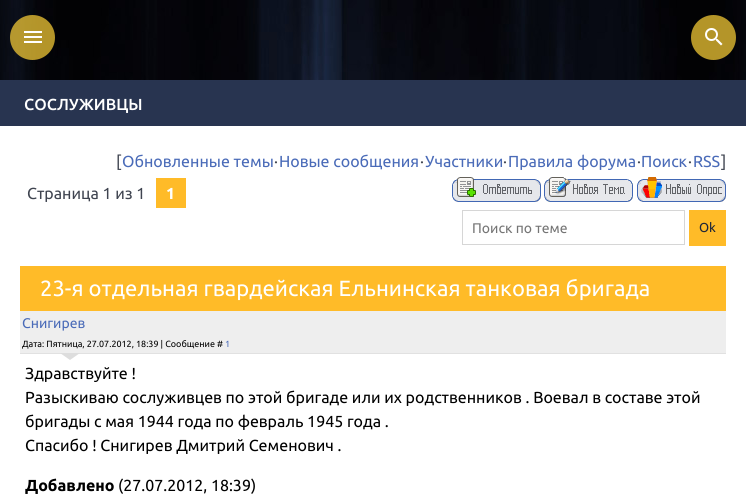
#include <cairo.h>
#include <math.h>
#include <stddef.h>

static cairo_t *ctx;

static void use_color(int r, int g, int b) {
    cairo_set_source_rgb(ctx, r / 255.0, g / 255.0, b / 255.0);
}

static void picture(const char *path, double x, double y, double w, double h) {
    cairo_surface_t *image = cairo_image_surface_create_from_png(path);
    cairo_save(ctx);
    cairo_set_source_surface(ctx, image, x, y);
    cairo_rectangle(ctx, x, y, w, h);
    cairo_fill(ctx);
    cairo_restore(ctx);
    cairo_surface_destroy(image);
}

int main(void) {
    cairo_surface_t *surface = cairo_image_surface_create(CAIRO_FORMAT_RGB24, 746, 501);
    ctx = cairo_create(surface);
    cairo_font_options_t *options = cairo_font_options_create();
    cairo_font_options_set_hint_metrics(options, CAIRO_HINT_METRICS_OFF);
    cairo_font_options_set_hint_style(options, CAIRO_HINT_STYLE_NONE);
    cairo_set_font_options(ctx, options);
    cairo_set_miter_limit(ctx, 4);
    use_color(255, 255, 255);
    cairo_paint(ctx);
    picture("img1.png", 0, 0, 746, 80);
    cairo_set_source_rgba(ctx, 1, 0.831, 0.22, 0.7);
    cairo_arc(ctx, 32.5, 37.5, 22.5, 0, 2 * M_PI);
    cairo_fill(ctx);
    picture("img2.png", 24, 31, 18, 12);
    cairo_arc(ctx, 713.5, 37.5, 22.5, 0, 2 * M_PI);
    cairo_fill(ctx);
    picture("img3.png", 705, 28, 18, 18);
    use_color(40, 52, 80);
    cairo_rectangle(ctx, 0, 80, 746, 46);
    cairo_fill(ctx);
    cairo_select_font_face(ctx, "Ubuntu Medium", CAIRO_FONT_SLANT_NORMAL, CAIRO_FONT_WEIGHT_NORMAL);
    cairo_set_font_size(ctx, 16);
    use_color(255, 255, 255);
    cairo_move_to(ctx, 24, 110);
    cairo_show_text(ctx, "СОСЛУЖИВЦЫ");
    cairo_select_font_face(ctx, "Ubuntu", CAIRO_FONT_SLANT_NORMAL, CAIRO_FONT_WEIGHT_NORMAL);
    use_color(63, 68, 80);
    cairo_move_to(ctx, 116, 167);
    cairo_show_text(ctx, "[");
    use_color(74, 107, 184);
    cairo_move_to(ctx, 122, 167);
    cairo_show_text(ctx, "Обновленные темы");
    use_color(63, 68, 80);
    cairo_move_to(ctx, 274, 167);
    cairo_show_text(ctx, "·");
    use_color(74, 107, 184);
    cairo_move_to(ctx, 279, 167);
    cairo_show_text(ctx, "Новые сообщения");
    use_color(63, 68, 80);
    cairo_move_to(ctx, 420, 167);
    cairo_show_text(ctx, "·");
    use_color(74, 107, 184);
    cairo_move_to(ctx, 425, 167);
    cairo_show_text(ctx, "Участники");
    use_color(63, 68, 80);
    cairo_move_to(ctx, 503, 167);
    cairo_show_text(ctx, "·");
    use_color(74, 107, 184);
    cairo_move_to(ctx, 508, 167);
    cairo_show_text(ctx, "Правила форума");
    use_color(63, 68, 80);
    cairo_move_to(ctx, 637, 167);
    cairo_show_text(ctx, "·");
    use_color(74, 107, 184);
    cairo_move_to(ctx, 641, 167);
    cairo_show_text(ctx, "Поиск");
    use_color(63, 68, 80);
    cairo_move_to(ctx, 688, 167);
    cairo_show_text(ctx, "·");
    use_color(74, 107, 184);
    cairo_move_to(ctx, 693, 167);
    cairo_show_text(ctx, "RSS");
    use_color(63, 68, 80);
    cairo_move_to(ctx, 721, 167);
    cairo_show_text(ctx, "]");
    cairo_move_to(ctx, 27, 199);
    cairo_show_text(ctx, "Страница 1 из 1");
    use_color(255, 187, 40);
    cairo_rectangle(ctx, 156, 178, 30, 30);
    cairo_fill(ctx);
    cairo_select_font_face(ctx, "Ubuntu", CAIRO_FONT_SLANT_NORMAL, CAIRO_FONT_WEIGHT_BOLD);
    use_color(255, 255, 255);
    cairo_move_to(ctx, 166, 199);
    cairo_show_text(ctx, "1");
    picture("img4.png", 452, 177, 89, 25);
    picture("img5.png", 544, 177, 89, 25);
    picture("img6.png", 637, 177, 89, 25);
    cairo_rectangle(ctx, 462.5, 210.5, 222, 34);
    use_color(214, 214, 214);
    cairo_set_line_width(ctx, 1);
    cairo_stroke(ctx);
    cairo_select_font_face(ctx, "Ubuntu", CAIRO_FONT_SLANT_NORMAL, CAIRO_FONT_WEIGHT_NORMAL);
    cairo_set_font_size(ctx, 14);
    use_color(117, 117, 117);
    cairo_move_to(ctx, 472, 233);
    cairo_show_text(ctx, "Поиск по теме");
    use_color(255, 187, 40);
    cairo_rectangle(ctx, 689, 210, 37, 36);
    cairo_fill(ctx);
    cairo_set_font_size(ctx, 13);
    use_color(29, 37, 56);
    cairo_move_to(ctx, 699, 232);
    cairo_show_text(ctx, "Ok");
    use_color(255, 187, 40);
    cairo_rectangle(ctx, 20, 266, 706, 45);
    cairo_fill(ctx);
    cairo_set_font_size(ctx, 22);
    use_color(255, 255, 255);
    cairo_move_to(ctx, 40, 296);
    cairo_show_text(ctx, "23-я отдельная гвардейская Ельнинская танковая бригада");
    use_color(238, 238, 238);
    cairo_rectangle(ctx, 20, 311, 706, 42);
    cairo_fill(ctx);
    cairo_set_font_size(ctx, 14);
    use_color(74, 107, 184);
    cairo_move_to(ctx, 22, 328);
    cairo_show_text(ctx, "Снигирев");
    use_color(225, 225, 225);
    cairo_rectangle(ctx, 20, 353, 706, 1);
    cairo_fill(ctx);
    cairo_set_font_size(ctx, 9);
    use_color(0, 0, 0);
    cairo_move_to(ctx, 22, 347);
    cairo_show_text(ctx, "Дата: Пятница, 27.07.2012, 18:39 | Сообщение #");
    use_color(74, 107, 184);
    cairo_move_to(ctx, 225, 347);
    cairo_show_text(ctx, "1");
    use_color(221, 221, 221);
    cairo_new_path(ctx);
    cairo_move_to(ctx, 60, 353);
    cairo_line_to(ctx, 80, 353);
    cairo_line_to(ctx, 70, 360);
    cairo_close_path(ctx);
    cairo_fill(ctx);
    cairo_set_font_size(ctx, 16);
    use_color(0, 0, 0);
    cairo_move_to(ctx, 25, 379);
    cairo_show_text(ctx, "Здравствуйте !");
    cairo_move_to(ctx, 25, 403);
    cairo_show_text(ctx, "Разыскиваю сослуживцев по этой бригаде или их родственников . Воевал в составе этой");
    cairo_move_to(ctx, 25, 427);
    cairo_show_text(ctx, "бригады с мая 1944 года по февраль 1945 года .");
    cairo_move_to(ctx, 25, 451);
    cairo_show_text(ctx, "Спасибо ! Снигирев Дмитрий Семенович .");
    cairo_select_font_face(ctx, "Ubuntu", CAIRO_FONT_SLANT_NORMAL, CAIRO_FONT_WEIGHT_BOLD);
    cairo_move_to(ctx, 25, 491);
    cairo_show_text(ctx, "Добавлено");
    cairo_select_font_face(ctx, "Ubuntu", CAIRO_FONT_SLANT_NORMAL, CAIRO_FONT_WEIGHT_NORMAL);
    cairo_move_to(ctx, 118, 491);
    cairo_show_text(ctx, "(27.07.2012, 18:39)");
    cairo_surface_write_to_png(surface, "result.png");
    cairo_font_options_destroy(options);
    cairo_destroy(ctx);
    cairo_surface_destroy(surface);
    return 0;
}
